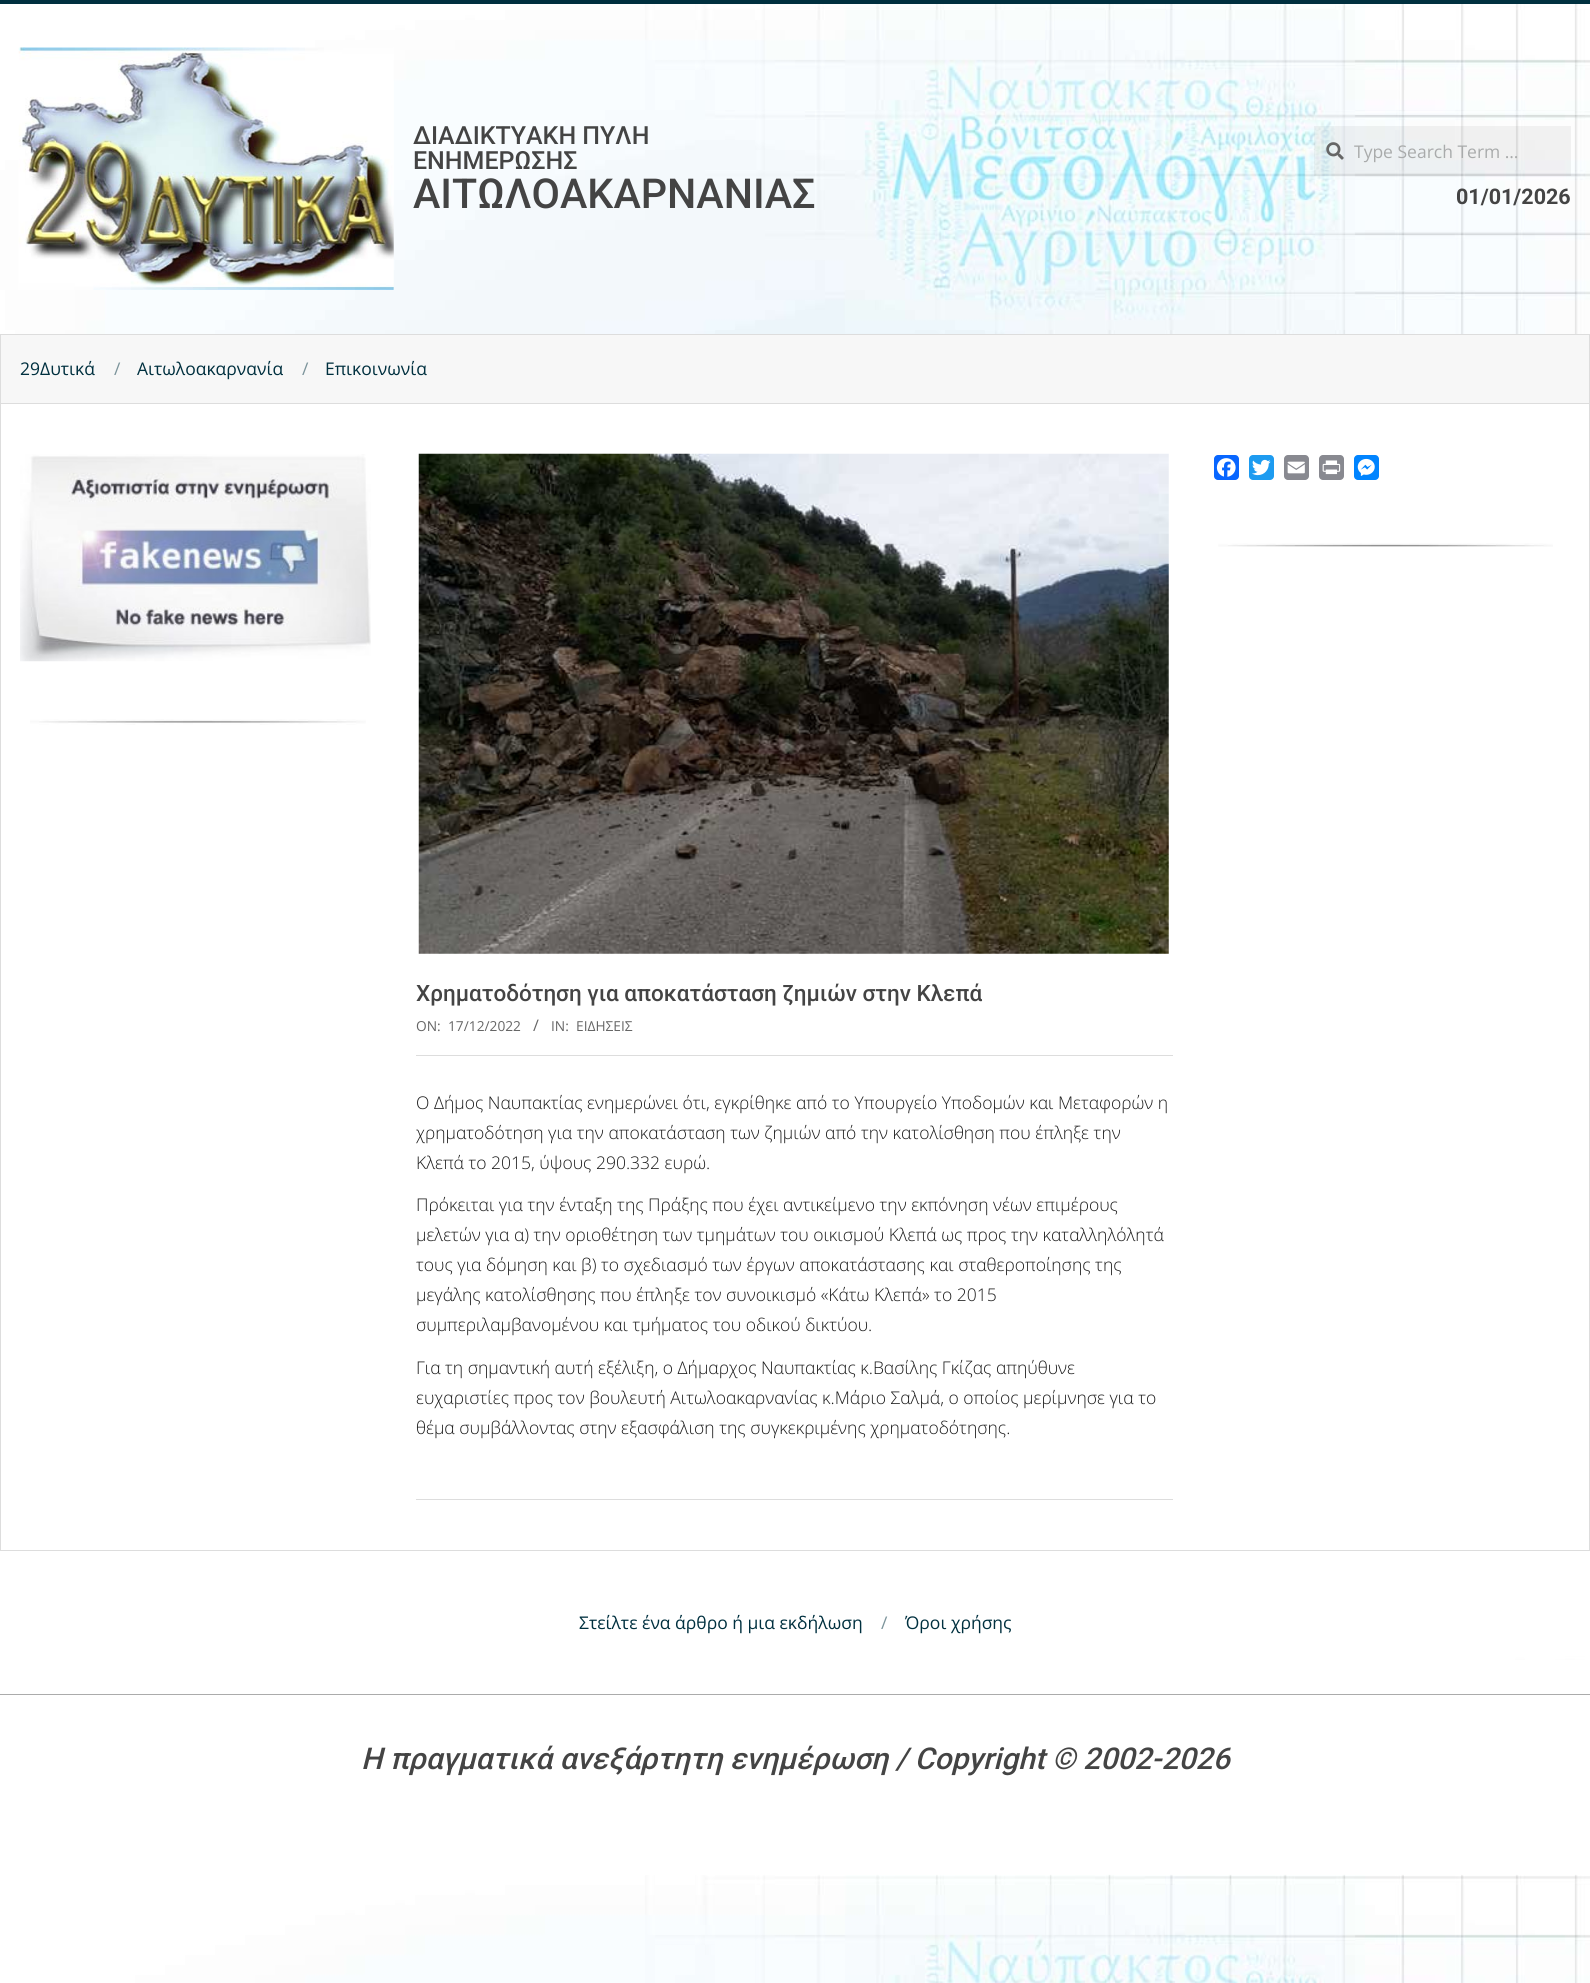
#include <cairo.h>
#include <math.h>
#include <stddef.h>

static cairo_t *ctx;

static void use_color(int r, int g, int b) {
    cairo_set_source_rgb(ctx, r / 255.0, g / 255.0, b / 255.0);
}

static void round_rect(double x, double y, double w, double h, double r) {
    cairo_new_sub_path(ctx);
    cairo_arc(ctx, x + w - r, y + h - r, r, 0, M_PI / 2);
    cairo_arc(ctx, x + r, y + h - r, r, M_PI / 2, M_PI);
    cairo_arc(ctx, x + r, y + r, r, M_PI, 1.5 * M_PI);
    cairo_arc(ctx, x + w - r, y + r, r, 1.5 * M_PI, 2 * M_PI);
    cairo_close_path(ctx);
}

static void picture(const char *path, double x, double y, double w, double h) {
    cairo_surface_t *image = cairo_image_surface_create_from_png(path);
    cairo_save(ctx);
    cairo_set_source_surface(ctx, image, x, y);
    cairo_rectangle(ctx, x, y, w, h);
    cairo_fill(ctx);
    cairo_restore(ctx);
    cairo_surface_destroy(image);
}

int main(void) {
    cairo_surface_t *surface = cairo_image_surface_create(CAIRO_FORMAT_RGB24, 1590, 1983);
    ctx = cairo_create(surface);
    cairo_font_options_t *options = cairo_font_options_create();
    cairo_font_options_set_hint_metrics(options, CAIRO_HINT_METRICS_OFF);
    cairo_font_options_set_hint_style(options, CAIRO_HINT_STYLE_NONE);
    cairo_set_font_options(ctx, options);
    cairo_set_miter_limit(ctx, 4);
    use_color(255, 255, 255);
    cairo_paint(ctx);
    picture("img1.png", 0, 4, 1590, 1979);
    use_color(0, 48, 63);
    cairo_rectangle(ctx, 0, 0, 1590, 4);
    cairo_fill(ctx);
    use_color(221, 221, 221);
    cairo_rectangle(ctx, 0, 334, 1590, 1);
    cairo_fill(ctx);
    picture("img2.png", 18, 47, 376, 243);
    cairo_select_font_face(ctx, "Roboto Medium", CAIRO_FONT_SLANT_NORMAL, CAIRO_FONT_WEIGHT_NORMAL);
    cairo_set_font_size(ctx, 25);
    use_color(68, 68, 68);
    cairo_move_to(ctx, 413, 144);
    cairo_show_text(ctx, "ΔΙΑΔΙΚΤΥΑΚΗ ΠΥΛΗ");
    cairo_move_to(ctx, 413, 169);
    cairo_show_text(ctx, "ΕΝΗΜΕΡΩΣΗΣ");
    cairo_set_font_size(ctx, 41.25);
    cairo_move_to(ctx, 413, 208);
    cairo_show_text(ctx, "ΑΙΤΩΛΟΑΚΑΡΝΑΝΙΑΣ");
    cairo_set_source_rgba(ctx, 0, 0, 0, 0.05);
    cairo_rectangle(ctx, 1314, 126, 257, 50);
    cairo_fill(ctx);
    picture("img3.png", 1326, 142, 18, 18);
    cairo_select_font_face(ctx, "Open Sans", CAIRO_FONT_SLANT_NORMAL, CAIRO_FONT_WEIGHT_NORMAL);
    cairo_set_font_size(ctx, 17.5);
    use_color(169, 171, 171);
    cairo_move_to(ctx, 1354, 158);
    cairo_show_text(ctx, "Type Search Term …");
    cairo_select_font_face(ctx, "Roboto", CAIRO_FONT_SLANT_NORMAL, CAIRO_FONT_WEIGHT_BOLD);
    cairo_set_font_size(ctx, 21.5);
    use_color(68, 68, 68);
    cairo_move_to(ctx, 1456, 204);
    cairo_show_text(ctx, "01/01/2026");
    use_color(247, 247, 247);
    cairo_rectangle(ctx, 1, 335, 1588, 68);
    cairo_fill(ctx);
    use_color(221, 221, 221);
    cairo_rectangle(ctx, 1589, 335, 1, 1215);
    cairo_fill(ctx);
    cairo_rectangle(ctx, 0, 403, 1590, 1);
    cairo_fill(ctx);
    cairo_rectangle(ctx, 0, 335, 1, 1215);
    cairo_fill(ctx);
    cairo_select_font_face(ctx, "Open Sans", CAIRO_FONT_SLANT_NORMAL, CAIRO_FONT_WEIGHT_NORMAL);
    cairo_set_font_size(ctx, 17.5);
    use_color(0, 48, 63);
    cairo_move_to(ctx, 20, 375);
    cairo_show_text(ctx, "29Δυτικά");
    use_color(124, 148, 155);
    cairo_move_to(ctx, 114, 375);
    cairo_show_text(ctx, "/");
    use_color(0, 48, 63);
    cairo_move_to(ctx, 137, 375);
    cairo_show_text(ctx, "Αιτωλοακαρνανία");
    use_color(124, 148, 155);
    cairo_move_to(ctx, 302, 375);
    cairo_show_text(ctx, "/");
    use_color(0, 48, 63);
    cairo_move_to(ctx, 325, 375);
    cairo_show_text(ctx, "Επικοινωνία");
    use_color(255, 255, 255);
    cairo_rectangle(ctx, 1, 404, 1588, 1146);
    cairo_fill(ctx);
    picture("img4.png", 20, 454, 351, 208);
    picture("img5.png", 30, 719, 336, 6);
    use_color(8, 102, 255);
    round_rect(1214, 455, 25, 25, 4);
    cairo_fill(ctx);
    picture("img6.png", 1216, 458, 20, 19);
    use_color(29, 155, 240);
    round_rect(1249, 455, 25, 25, 4);
    cairo_fill(ctx);
    picture("img7.png", 1252, 459, 19, 17);
    use_color(136, 137, 144);
    round_rect(1284, 455, 25, 25, 4);
    cairo_fill(ctx);
    picture("img8.png", 1287, 461, 18, 13);
    round_rect(1319, 455, 25, 25, 4);
    cairo_fill(ctx);
    picture("img9.png", 1322, 460, 19, 15);
    use_color(0, 132, 255);
    round_rect(1354, 455, 25, 25, 4);
    cairo_fill(ctx);
    picture("img10.png", 1357, 458, 18, 18);
    picture("img11.png", 1218, 543, 335, 4);
    picture("img12.png", 418, 453, 751, 501);
    use_color(221, 221, 221);
    cairo_rectangle(ctx, 416, 1055, 757, 1);
    cairo_fill(ctx);
    cairo_select_font_face(ctx, "Roboto Medium", CAIRO_FONT_SLANT_NORMAL, CAIRO_FONT_WEIGHT_NORMAL);
    cairo_set_font_size(ctx, 22.5);
    use_color(68, 68, 68);
    cairo_move_to(ctx, 416, 1001);
    cairo_show_text(ctx, "Χρηματοδότηση για αποκατάσταση ζημιών στην Κλεπά");
    cairo_select_font_face(ctx, "Open Sans", CAIRO_FONT_SLANT_NORMAL, CAIRO_FONT_WEIGHT_NORMAL);
    cairo_set_font_size(ctx, 13.75);
    use_color(102, 102, 102);
    cairo_move_to(ctx, 416, 1031);
    cairo_show_text(ctx, "ON:");
    cairo_move_to(ctx, 448, 1031);
    cairo_show_text(ctx, "17/12/2022");
    cairo_set_font_size(ctx, 16);
    cairo_move_to(ctx, 533, 1031);
    cairo_show_text(ctx, "/");
    cairo_set_font_size(ctx, 13.75);
    cairo_move_to(ctx, 551, 1031);
    cairo_show_text(ctx, "IN:");
    cairo_move_to(ctx, 576, 1031);
    cairo_show_text(ctx, "ΕΙΔΗΣΕΙΣ");
    use_color(221, 221, 221);
    cairo_rectangle(ctx, 416, 1499, 757, 1);
    cairo_fill(ctx);
    cairo_select_font_face(ctx, "Open Sans Light", CAIRO_FONT_SLANT_NORMAL, CAIRO_FONT_WEIGHT_NORMAL);
    cairo_set_font_size(ctx, 17.5);
    use_color(28, 28, 28);
    cairo_move_to(ctx, 416, 1109);
    cairo_show_text(ctx, "Ο Δήμος Ναυπακτίας ενημερώνει ότι, εγκρίθηκε από το Υπουργείο Υποδομών και Μεταφορών η");
    cairo_move_to(ctx, 416, 1139);
    cairo_show_text(ctx, "χρηματοδότηση για την αποκατάσταση των ζημιών από την κατολίσθηση που έπληξε την");
    cairo_move_to(ctx, 416, 1169);
    cairo_show_text(ctx, "Κλεπά το 2015, ύψους 290.332 ευρώ.");
    cairo_move_to(ctx, 416, 1211);
    cairo_show_text(ctx, "Πρόκειται για την ένταξη της Πράξης που έχει αντικείμενο την εκπόνηση νέων επιμέρους");
    cairo_move_to(ctx, 416, 1241);
    cairo_show_text(ctx, "μελετών για α) την οριοθέτηση των τμημάτων του οικισμού Κλεπά ως προς την καταλληλόλητά");
    cairo_move_to(ctx, 416, 1271);
    cairo_show_text(ctx, "τους για δόμηση και β) τo σχεδιασμό των έργων αποκατάστασης και σταθεροποίησης της");
    cairo_move_to(ctx, 416, 1301);
    cairo_show_text(ctx, "μεγάλης κατολίσθησης που έπληξε τον συνοικισμό «Κάτω Κλεπά» το 2015");
    cairo_move_to(ctx, 416, 1331);
    cairo_show_text(ctx, "συμπεριλαμβανομένου και τμήματος του οδικού δικτύου.");
    cairo_move_to(ctx, 416, 1374);
    cairo_show_text(ctx, "Για τη σημαντική αυτή εξέλιξη, ο Δήμαρχος Ναυπακτίας κ.Βασίλης Γκίζας απηύθυνε");
    cairo_move_to(ctx, 416, 1404);
    cairo_show_text(ctx, "ευχαριστίες προς τον βουλευτή Αιτωλοακαρνανίας κ.Μάριο Σαλμά, ο οποίος μερίμνησε για το");
    cairo_move_to(ctx, 416, 1434);
    cairo_show_text(ctx, "θέμα συμβάλλοντας στην εξασφάλιση της συγκεκριμένης χρηματοδότησης.");
    use_color(255, 255, 255);
    cairo_rectangle(ctx, 0, 1551, 1590, 105);
    cairo_fill(ctx);
    use_color(221, 221, 221);
    cairo_rectangle(ctx, 0, 1550, 1590, 1);
    cairo_fill(ctx);
    cairo_select_font_face(ctx, "Open Sans", CAIRO_FONT_SLANT_NORMAL, CAIRO_FONT_WEIGHT_NORMAL);
    use_color(0, 48, 63);
    cairo_move_to(ctx, 579, 1629);
    cairo_show_text(ctx, "Στείλτε ένα άρθρο ή μια εκδήλωση");
    use_color(124, 148, 155);
    cairo_move_to(ctx, 881, 1629);
    cairo_show_text(ctx, "/");
    use_color(0, 48, 63);
    cairo_move_to(ctx, 905, 1629);
    cairo_show_text(ctx, "Όροι χρήσης");
    use_color(171, 171, 171);
    cairo_rectangle(ctx, 0, 1694, 1590, 1);
    cairo_fill(ctx);
    cairo_select_font_face(ctx, "Roboto Medium", CAIRO_FONT_SLANT_ITALIC, CAIRO_FONT_WEIGHT_NORMAL);
    cairo_set_font_size(ctx, 30);
    use_color(68, 68, 68);
    cairo_move_to(ctx, 361, 1769);
    cairo_show_text(ctx, "H πραγματικά ανεξάρτητη ενημέρωση / Copyright © 2002-2026");
    cairo_surface_write_to_png(surface, "result.png");
    cairo_font_options_destroy(options);
    cairo_destroy(ctx);
    cairo_surface_destroy(surface);
    return 0;
}
